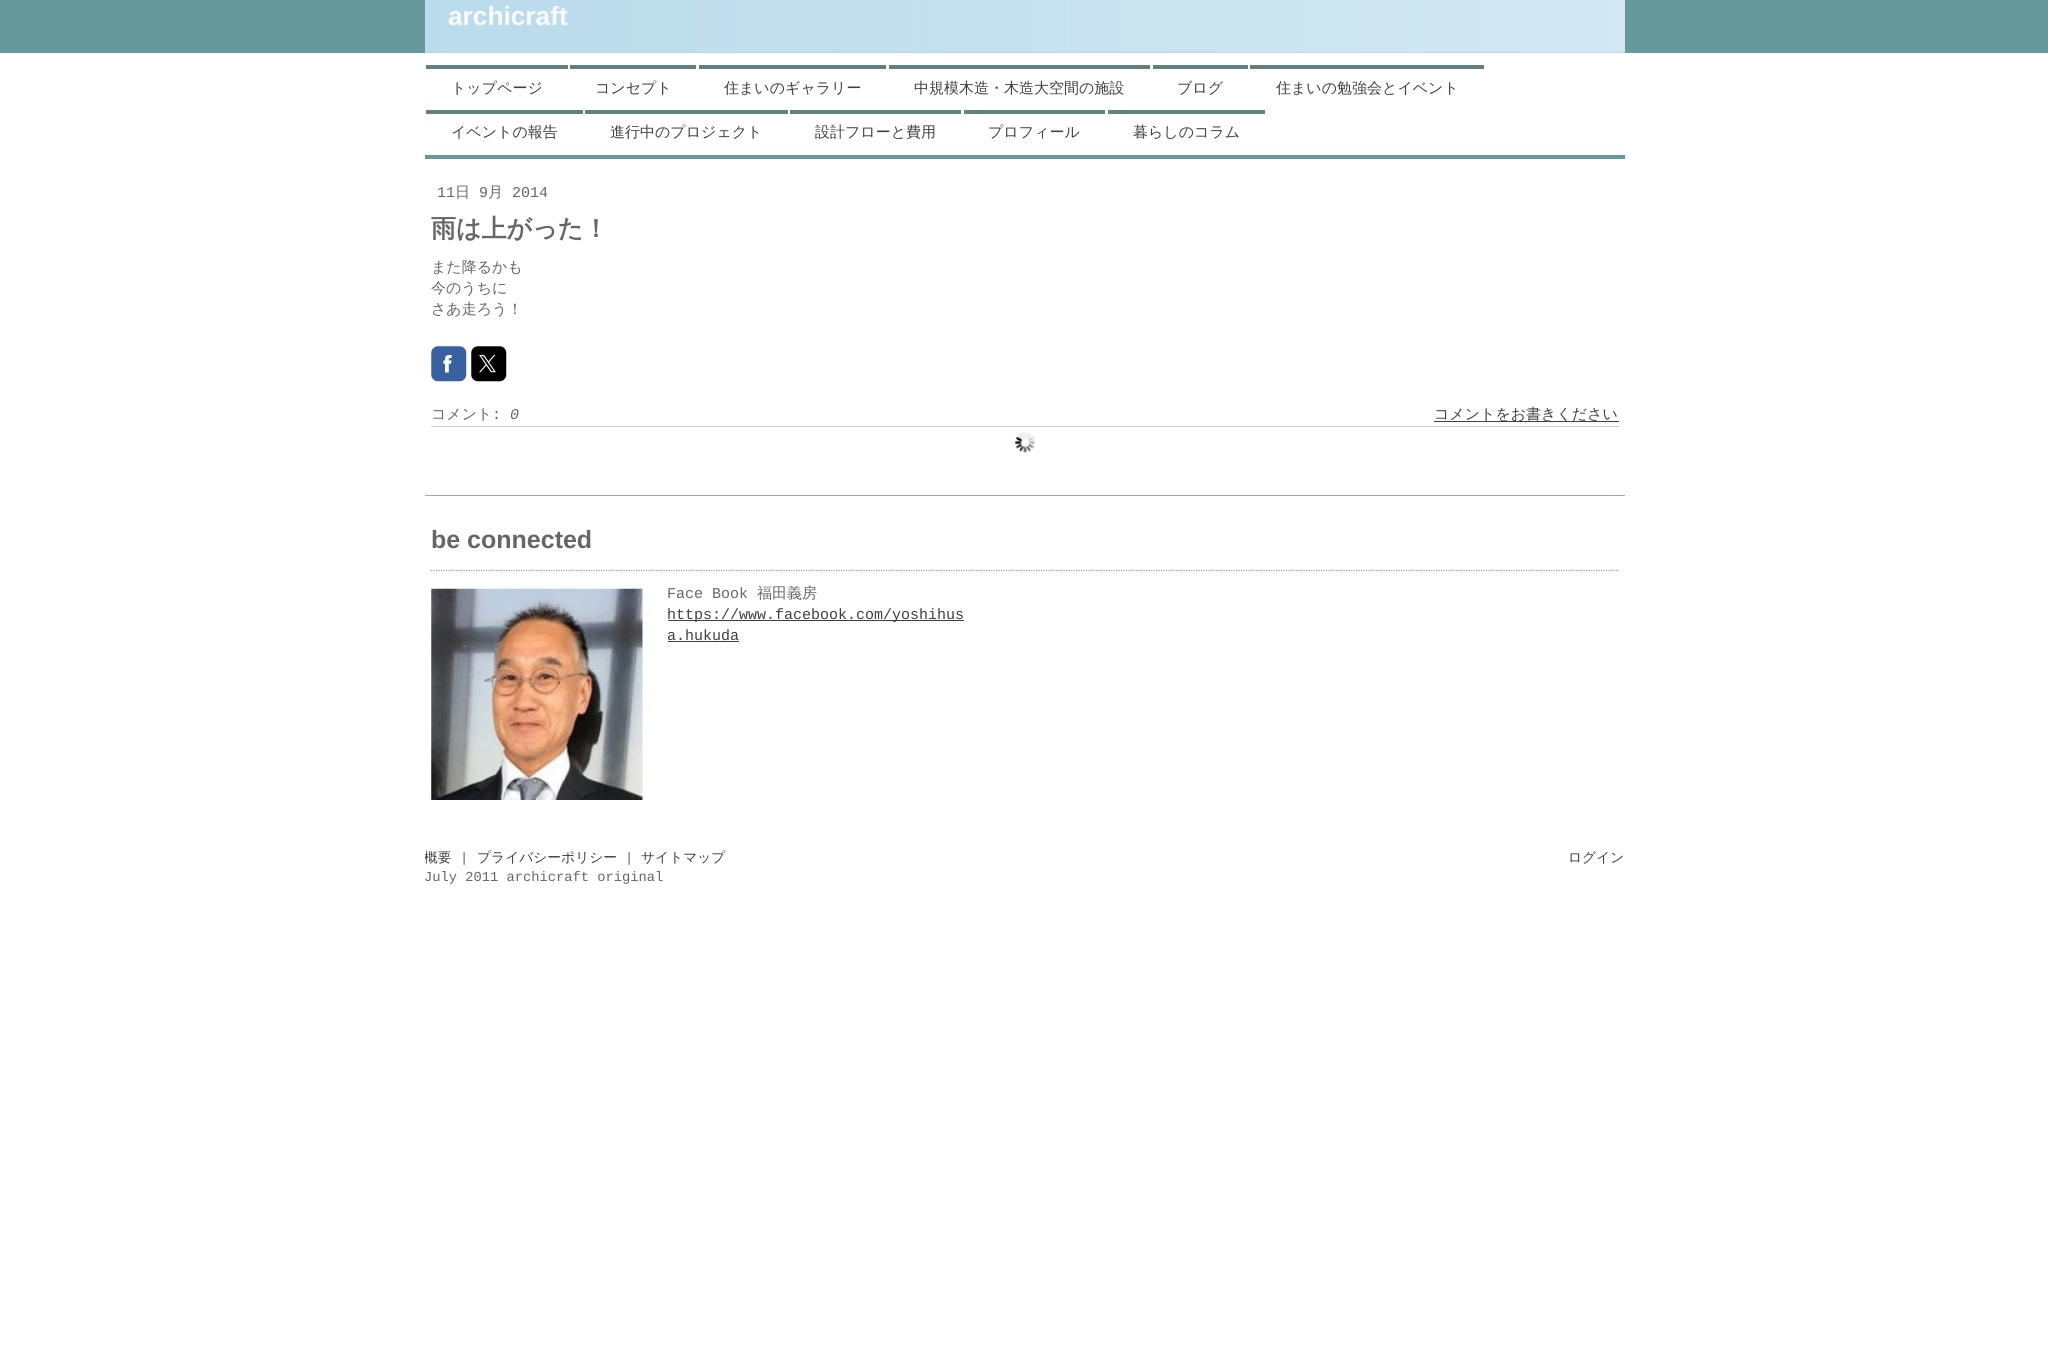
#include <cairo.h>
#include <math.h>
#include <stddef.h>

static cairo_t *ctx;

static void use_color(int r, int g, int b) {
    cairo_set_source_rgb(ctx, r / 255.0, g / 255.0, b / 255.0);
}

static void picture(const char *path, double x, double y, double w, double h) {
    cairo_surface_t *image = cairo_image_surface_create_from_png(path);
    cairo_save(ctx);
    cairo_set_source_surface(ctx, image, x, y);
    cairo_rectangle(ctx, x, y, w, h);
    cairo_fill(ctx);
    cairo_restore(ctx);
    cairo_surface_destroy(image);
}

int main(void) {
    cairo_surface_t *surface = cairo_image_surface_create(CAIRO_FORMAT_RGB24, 2048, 1355);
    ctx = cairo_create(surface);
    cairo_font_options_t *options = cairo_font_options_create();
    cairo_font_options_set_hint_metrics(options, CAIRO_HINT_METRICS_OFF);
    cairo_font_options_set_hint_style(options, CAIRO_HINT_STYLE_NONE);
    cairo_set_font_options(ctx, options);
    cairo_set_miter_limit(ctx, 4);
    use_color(255, 255, 255);
    cairo_paint(ctx);
    use_color(102, 153, 153);
    cairo_rectangle(ctx, 0, 0, 2048, 53);
    cairo_fill(ctx);
    use_color(180, 216, 233);
    cairo_rectangle(ctx, 425, 0, 1200, 53);
    cairo_fill(ctx);
    picture("img1.png", 425, 0, 1200, 53);
    cairo_select_font_face(ctx, "Liberation Sans", CAIRO_FONT_SLANT_NORMAL, CAIRO_FONT_WEIGHT_BOLD);
    cairo_set_font_size(ctx, 26.25);
    use_color(250, 250, 252);
    cairo_move_to(ctx, 448, 25);
    cairo_show_text(ctx, "archicraft");
    use_color(98, 128, 128);
    cairo_rectangle(ctx, 426, 65, 142, 4);
    cairo_fill(ctx);
    cairo_select_font_face(ctx, "WenQuanYi Zen Hei Medium", CAIRO_FONT_SLANT_NORMAL, CAIRO_FONT_WEIGHT_NORMAL);
    cairo_set_font_size(ctx, 15);
    use_color(64, 64, 64);
    cairo_move_to(ctx, 451, 93);
    cairo_show_text(ctx, "トップページ");
    use_color(98, 128, 128);
    cairo_rectangle(ctx, 570, 65, 126, 4);
    cairo_fill(ctx);
    use_color(64, 64, 64);
    cairo_move_to(ctx, 595, 93);
    cairo_show_text(ctx, "コンセプト");
    use_color(98, 128, 128);
    cairo_rectangle(ctx, 699, 65, 187, 4);
    cairo_fill(ctx);
    use_color(64, 64, 64);
    cairo_move_to(ctx, 724, 93);
    cairo_show_text(ctx, "住まいのギャラリー");
    use_color(98, 128, 128);
    cairo_rectangle(ctx, 889, 65, 261, 4);
    cairo_fill(ctx);
    use_color(64, 64, 64);
    cairo_move_to(ctx, 914, 93);
    cairo_show_text(ctx, "中規模木造・木造大空間の施設");
    use_color(98, 128, 128);
    cairo_rectangle(ctx, 1153, 65, 95, 4);
    cairo_fill(ctx);
    use_color(64, 64, 64);
    cairo_move_to(ctx, 1177, 93);
    cairo_show_text(ctx, "ブログ");
    use_color(98, 128, 128);
    cairo_rectangle(ctx, 1250, 65, 234, 4);
    cairo_fill(ctx);
    use_color(64, 64, 64);
    cairo_move_to(ctx, 1276, 93);
    cairo_show_text(ctx, "住まいの勉強会とイベント");
    use_color(98, 128, 128);
    cairo_rectangle(ctx, 426, 110, 157, 4);
    cairo_fill(ctx);
    use_color(64, 64, 64);
    cairo_move_to(ctx, 451, 137);
    cairo_show_text(ctx, "イベントの報告");
    use_color(98, 128, 128);
    cairo_rectangle(ctx, 585, 110, 203, 4);
    cairo_fill(ctx);
    use_color(64, 64, 64);
    cairo_move_to(ctx, 610, 137);
    cairo_show_text(ctx, "進行中のプロジェクト");
    use_color(98, 128, 128);
    cairo_rectangle(ctx, 790, 110, 171, 4);
    cairo_fill(ctx);
    use_color(64, 64, 64);
    cairo_move_to(ctx, 815, 137);
    cairo_show_text(ctx, "設計フローと費用");
    use_color(98, 128, 128);
    cairo_rectangle(ctx, 964, 110, 141, 4);
    cairo_fill(ctx);
    use_color(64, 64, 64);
    cairo_move_to(ctx, 988, 137);
    cairo_show_text(ctx, "プロフィール");
    use_color(98, 128, 128);
    cairo_rectangle(ctx, 1108, 110, 157, 4);
    cairo_fill(ctx);
    use_color(64, 64, 64);
    cairo_move_to(ctx, 1133, 137);
    cairo_show_text(ctx, "暮らしのコラム");
    use_color(102, 153, 153);
    cairo_rectangle(ctx, 425, 155, 1200, 4);
    cairo_fill(ctx);
    cairo_select_font_face(ctx, "Liberation Mono", CAIRO_FONT_SLANT_NORMAL, CAIRO_FONT_WEIGHT_NORMAL);
    use_color(102, 102, 102);
    cairo_move_to(ctx, 437, 197);
    cairo_show_text(ctx, "11");
    cairo_select_font_face(ctx, "WenQuanYi Zen Hei Medium", CAIRO_FONT_SLANT_NORMAL, CAIRO_FONT_WEIGHT_NORMAL);
    cairo_move_to(ctx, 455, 197);
    cairo_show_text(ctx, "日");
    cairo_select_font_face(ctx, "Liberation Mono", CAIRO_FONT_SLANT_NORMAL, CAIRO_FONT_WEIGHT_NORMAL);
    cairo_move_to(ctx, 479, 197);
    cairo_show_text(ctx, "9");
    cairo_select_font_face(ctx, "WenQuanYi Zen Hei Medium", CAIRO_FONT_SLANT_NORMAL, CAIRO_FONT_WEIGHT_NORMAL);
    cairo_move_to(ctx, 488, 197);
    cairo_show_text(ctx, "月");
    cairo_select_font_face(ctx, "Liberation Mono", CAIRO_FONT_SLANT_NORMAL, CAIRO_FONT_WEIGHT_NORMAL);
    cairo_move_to(ctx, 512, 197);
    cairo_show_text(ctx, "2014");
    cairo_select_font_face(ctx, "WenQuanYi Zen Hei", CAIRO_FONT_SLANT_NORMAL, CAIRO_FONT_WEIGHT_BOLD);
    cairo_set_font_size(ctx, 25);
    cairo_move_to(ctx, 431, 237);
    cairo_show_text(ctx, "雨は上がった！");
    cairo_select_font_face(ctx, "WenQuanYi Zen Hei Medium", CAIRO_FONT_SLANT_NORMAL, CAIRO_FONT_WEIGHT_NORMAL);
    cairo_set_font_size(ctx, 15);
    cairo_move_to(ctx, 431, 272);
    cairo_show_text(ctx, "また降るかも");
    cairo_move_to(ctx, 431, 293);
    cairo_show_text(ctx, "今のうちに");
    cairo_move_to(ctx, 431, 314);
    cairo_show_text(ctx, "さあ走ろう！");
    picture("img2.png", 431, 346, 36, 36);
    picture("img3.png", 443, 355, 9, 18);
    picture("img4.png", 471, 346, 36, 36);
    picture("img5.png", 479, 355, 17, 18);
    cairo_move_to(ctx, 431, 419);
    cairo_show_text(ctx, "コメント");
    cairo_select_font_face(ctx, "Liberation Mono", CAIRO_FONT_SLANT_NORMAL, CAIRO_FONT_WEIGHT_NORMAL);
    cairo_move_to(ctx, 492, 419);
    cairo_show_text(ctx, ":");
    cairo_select_font_face(ctx, "Liberation Mono", CAIRO_FONT_SLANT_ITALIC, CAIRO_FONT_WEIGHT_NORMAL);
    cairo_move_to(ctx, 510, 419);
    cairo_show_text(ctx, "0");
    use_color(64, 64, 64);
    cairo_rectangle(ctx, 1434, 421, 185, 1);
    cairo_fill(ctx);
    cairo_select_font_face(ctx, "WenQuanYi Zen Hei Medium", CAIRO_FONT_SLANT_NORMAL, CAIRO_FONT_WEIGHT_NORMAL);
    cairo_move_to(ctx, 1434, 419);
    cairo_show_text(ctx, "コメントをお書きください");
    picture("img6.png", 1015, 432, 20, 21);
    use_color(204, 204, 204);
    cairo_rectangle(ctx, 431, 426, 1188, 1);
    cairo_fill(ctx);
    use_color(137, 179, 179);
    cairo_rectangle(ctx, 425, 495, 1200, 1);
    cairo_fill(ctx);
    cairo_select_font_face(ctx, "Liberation Sans", CAIRO_FONT_SLANT_NORMAL, CAIRO_FONT_WEIGHT_BOLD);
    cairo_set_font_size(ctx, 25);
    use_color(102, 102, 102);
    cairo_move_to(ctx, 431, 548);
    cairo_show_text(ctx, "be connected");
    cairo_new_path(ctx);
    cairo_move_to(ctx, 431, 570.5);
    cairo_line_to(ctx, 1619, 570.5);
    use_color(153, 153, 153);
    cairo_set_line_width(ctx, 1.2);
    cairo_set_dash(ctx, (double[]){1.25, 1.25}, 2, 0);
    cairo_stroke(ctx);
    picture("img7.png", 431, 588, 212, 212);
    cairo_select_font_face(ctx, "Liberation Mono", CAIRO_FONT_SLANT_NORMAL, CAIRO_FONT_WEIGHT_NORMAL);
    cairo_set_font_size(ctx, 15);
    use_color(102, 102, 102);
    cairo_move_to(ctx, 667, 598);
    cairo_show_text(ctx, "Face Book");
    cairo_select_font_face(ctx, "WenQuanYi Zen Hei Medium", CAIRO_FONT_SLANT_NORMAL, CAIRO_FONT_WEIGHT_NORMAL);
    cairo_move_to(ctx, 757, 598);
    cairo_show_text(ctx, "福田義房");
    use_color(64, 64, 64);
    cairo_rectangle(ctx, 668, 620, 296, 1);
    cairo_fill(ctx);
    cairo_select_font_face(ctx, "Liberation Mono", CAIRO_FONT_SLANT_NORMAL, CAIRO_FONT_WEIGHT_NORMAL);
    cairo_move_to(ctx, 667, 619);
    cairo_show_text(ctx, "https://www.facebook.com/yoshihus");
    cairo_move_to(ctx, 667, 640);
    cairo_show_text(ctx, "a.hukuda");
    cairo_rectangle(ctx, 668, 641, 71, 1);
    cairo_fill(ctx);
    cairo_save(ctx);
    cairo_rectangle(ctx, 425, 849, 1200, 39);
    cairo_clip(ctx);
    cairo_select_font_face(ctx, "WenQuanYi Zen Hei Medium", CAIRO_FONT_SLANT_NORMAL, CAIRO_FONT_WEIGHT_NORMAL);
    cairo_set_font_size(ctx, 13.75);
    cairo_move_to(ctx, 424, 862);
    cairo_show_text(ctx, "概要");
    cairo_restore(ctx);
    cairo_set_font_size(ctx, 13.75);
    use_color(102, 102, 102);
    cairo_move_to(ctx, 460, 862);
    cairo_show_text(ctx, "|");
    cairo_select_font_face(ctx, "WenQuanYi Zen Hei Medium", CAIRO_FONT_SLANT_NORMAL, CAIRO_FONT_WEIGHT_NORMAL);
    use_color(64, 64, 64);
    cairo_move_to(ctx, 477, 862);
    cairo_show_text(ctx, "プライバシーポリシー");
    cairo_select_font_face(ctx, "Liberation Mono", CAIRO_FONT_SLANT_NORMAL, CAIRO_FONT_WEIGHT_NORMAL);
    use_color(102, 102, 102);
    cairo_move_to(ctx, 625, 862);
    cairo_show_text(ctx, "|");
    cairo_select_font_face(ctx, "WenQuanYi Zen Hei Medium", CAIRO_FONT_SLANT_NORMAL, CAIRO_FONT_WEIGHT_NORMAL);
    use_color(64, 64, 64);
    cairo_move_to(ctx, 641, 862);
    cairo_show_text(ctx, "サイトマップ");
    cairo_select_font_face(ctx, "Liberation Mono", CAIRO_FONT_SLANT_NORMAL, CAIRO_FONT_WEIGHT_NORMAL);
    use_color(102, 102, 102);
    cairo_move_to(ctx, 424, 881);
    cairo_show_text(ctx, "July 2011 archicraft original");
    cairo_select_font_face(ctx, "WenQuanYi Zen Hei Medium", CAIRO_FONT_SLANT_NORMAL, CAIRO_FONT_WEIGHT_NORMAL);
    use_color(64, 64, 64);
    cairo_move_to(ctx, 1568, 862);
    cairo_show_text(ctx, "ログイン");
    cairo_surface_write_to_png(surface, "result.png");
    cairo_font_options_destroy(options);
    cairo_destroy(ctx);
    cairo_surface_destroy(surface);
    return 0;
}
